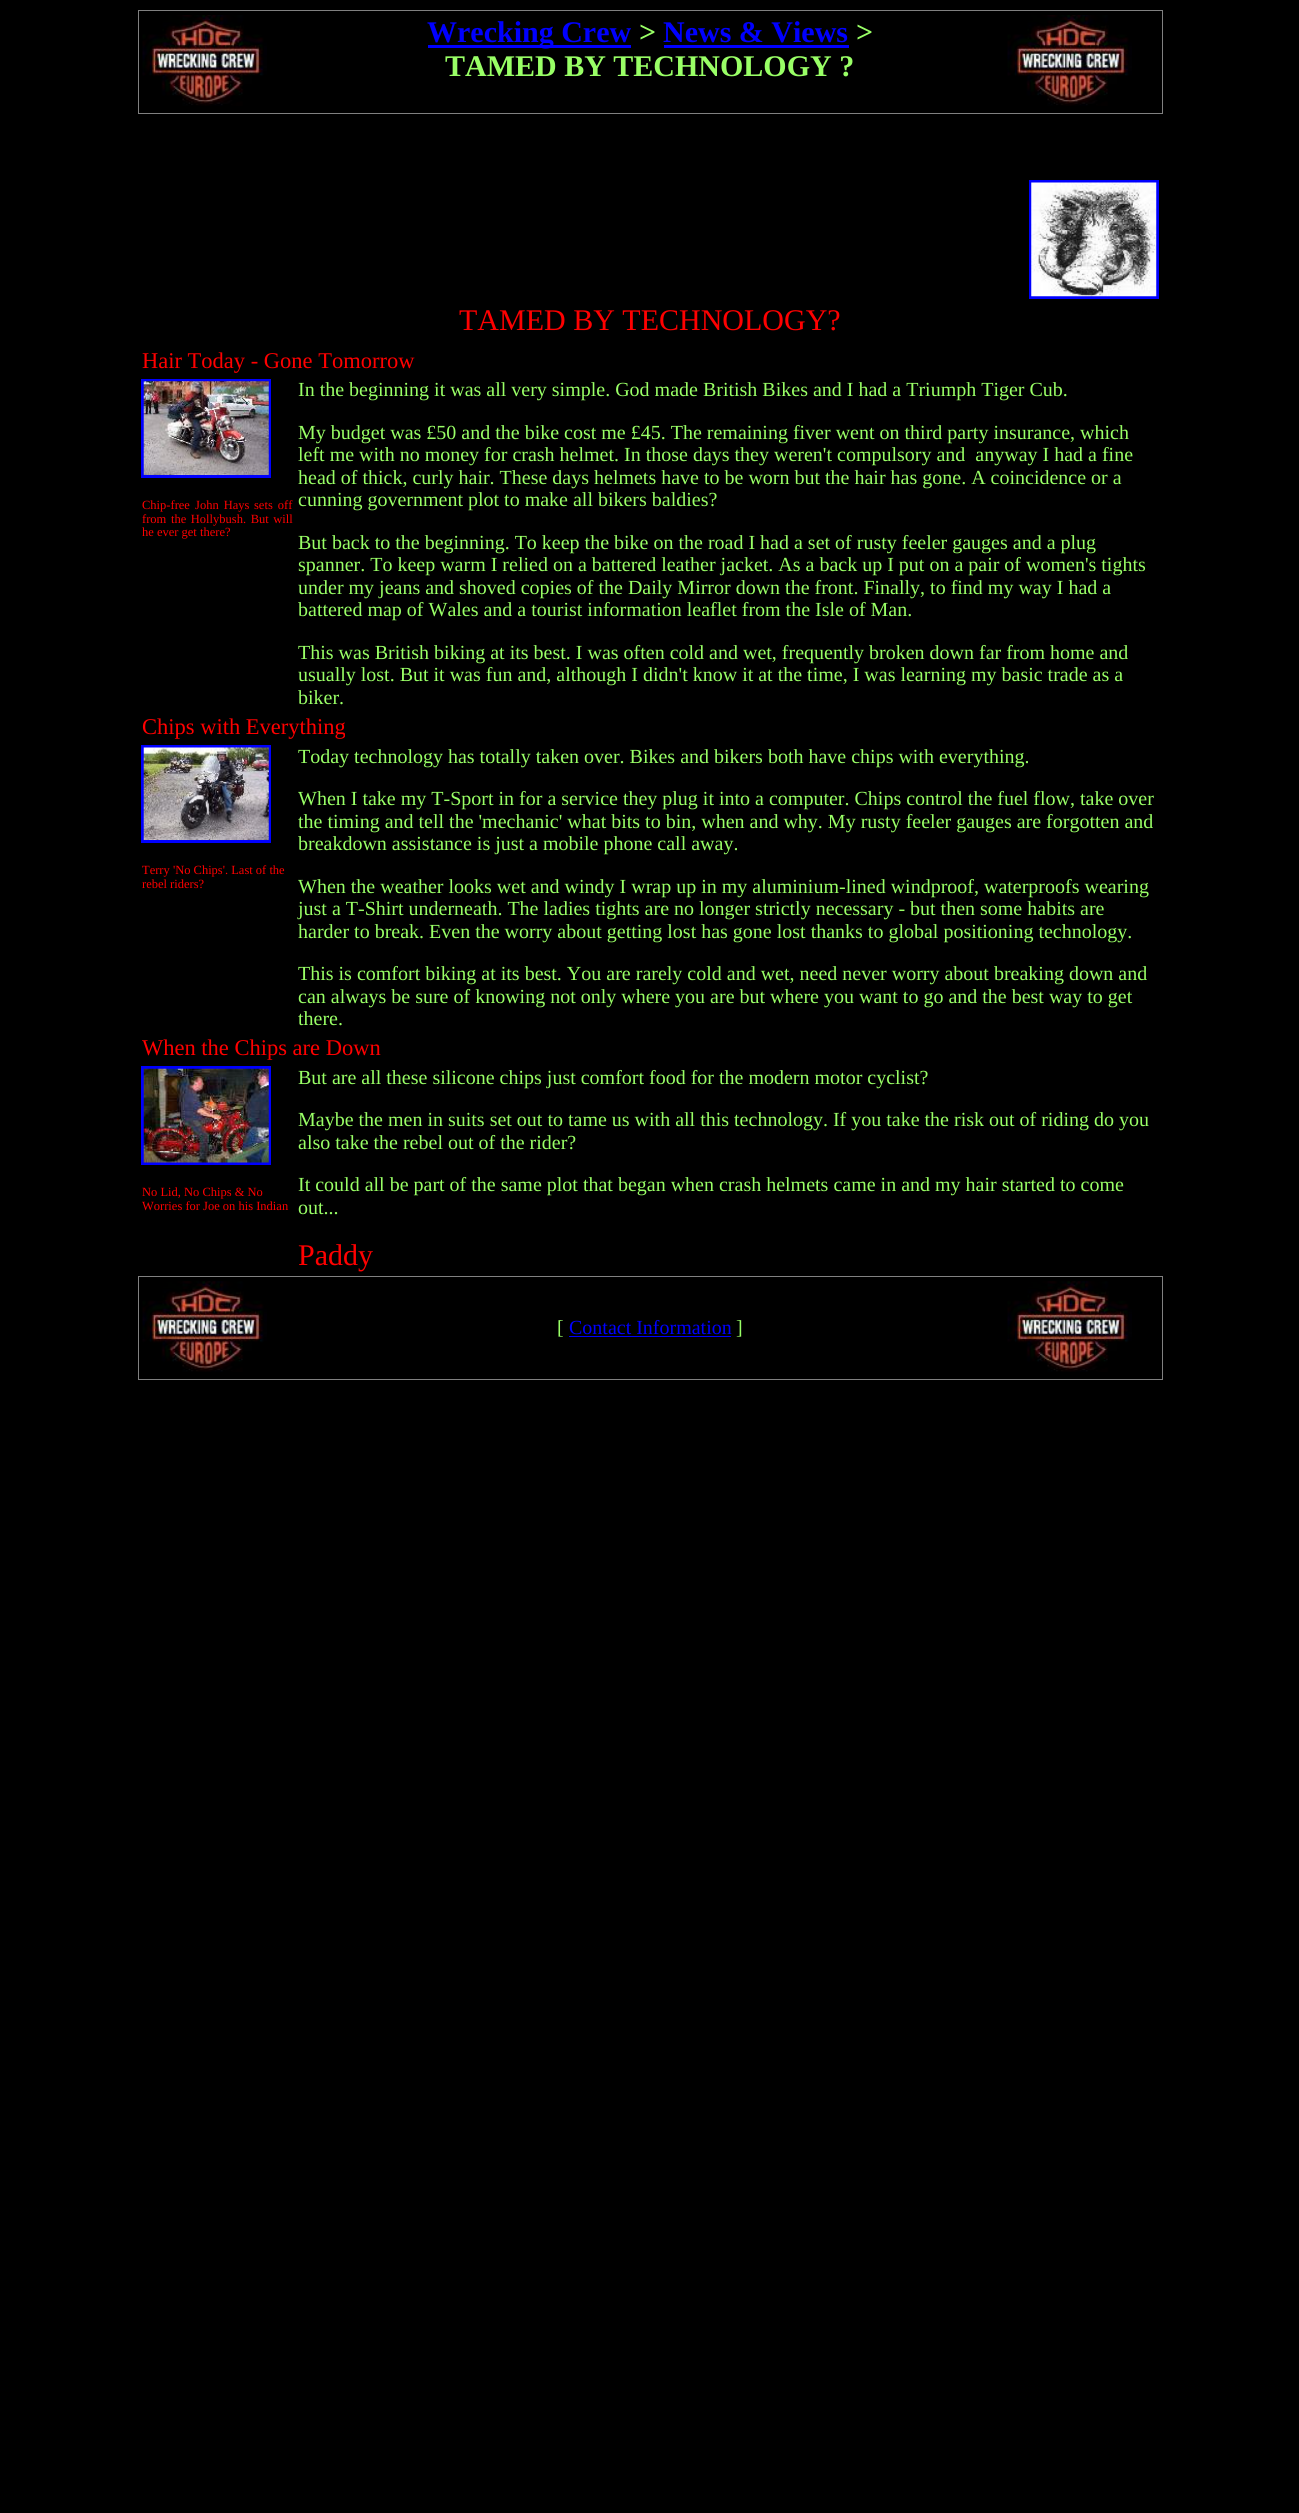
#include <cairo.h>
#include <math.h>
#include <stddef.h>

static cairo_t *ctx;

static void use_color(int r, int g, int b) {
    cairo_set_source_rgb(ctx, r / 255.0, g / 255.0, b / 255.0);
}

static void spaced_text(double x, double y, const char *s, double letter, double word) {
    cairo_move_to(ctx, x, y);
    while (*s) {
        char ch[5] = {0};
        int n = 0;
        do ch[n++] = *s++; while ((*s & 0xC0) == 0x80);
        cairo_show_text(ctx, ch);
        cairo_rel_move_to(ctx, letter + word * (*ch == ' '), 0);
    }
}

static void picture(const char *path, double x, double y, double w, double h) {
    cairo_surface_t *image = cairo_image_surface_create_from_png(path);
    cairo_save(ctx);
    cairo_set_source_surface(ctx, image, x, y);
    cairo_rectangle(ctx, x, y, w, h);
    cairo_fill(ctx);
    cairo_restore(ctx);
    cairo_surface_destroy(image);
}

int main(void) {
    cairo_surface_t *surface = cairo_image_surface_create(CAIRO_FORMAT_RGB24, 1299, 2513);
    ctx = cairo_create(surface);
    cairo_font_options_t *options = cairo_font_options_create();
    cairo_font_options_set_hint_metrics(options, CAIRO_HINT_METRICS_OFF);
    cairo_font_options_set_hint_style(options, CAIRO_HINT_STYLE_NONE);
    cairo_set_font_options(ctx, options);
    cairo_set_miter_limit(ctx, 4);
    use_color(0, 0, 0);
    cairo_paint(ctx);
    cairo_rectangle(ctx, 138.5, 10.5, 1024, 103);
    use_color(128, 128, 128);
    cairo_set_line_width(ctx, 1);
    cairo_stroke(ctx);
    picture("img1.png", 142, 15, 125, 91);
    use_color(0, 0, 255);
    cairo_rectangle(ctx, 428, 45, 203, 3);
    cairo_fill(ctx);
    cairo_select_font_face(ctx, "Liberation Serif", CAIRO_FONT_SLANT_NORMAL, CAIRO_FONT_WEIGHT_BOLD);
    cairo_set_font_size(ctx, 30);
    cairo_move_to(ctx, 427, 42);
    cairo_show_text(ctx, "Wrecking Crew");
    use_color(153, 255, 102);
    cairo_move_to(ctx, 639, 42);
    cairo_show_text(ctx, ">");
    use_color(0, 0, 255);
    cairo_move_to(ctx, 663, 42);
    cairo_show_text(ctx, "News & Views");
    cairo_rectangle(ctx, 664, 45, 185, 3);
    cairo_fill(ctx);
    use_color(153, 255, 102);
    cairo_move_to(ctx, 856, 42);
    cairo_show_text(ctx, ">");
    cairo_move_to(ctx, 445, 76);
    cairo_show_text(ctx, "TAMED BY TECHNOLOGY ?");
    picture("img2.png", 1007, 15, 125, 91);
    cairo_rectangle(ctx, 1030.5, 181.5, 127, 116);
    use_color(0, 0, 255);
    cairo_set_line_width(ctx, 3);
    cairo_stroke(ctx);
    picture("img3.png", 1031, 182, 126, 115);
    cairo_select_font_face(ctx, "Liberation Serif", CAIRO_FONT_SLANT_NORMAL, CAIRO_FONT_WEIGHT_NORMAL);
    use_color(255, 0, 0);
    cairo_move_to(ctx, 459, 330);
    cairo_show_text(ctx, "TAMED BY TECHNOLOGY?");
    cairo_set_font_size(ctx, 22.5);
    cairo_move_to(ctx, 142, 368);
    cairo_show_text(ctx, "Hair Today - Gone Tomorrow");
    cairo_rectangle(ctx, 142.5, 380.5, 127, 96);
    use_color(0, 0, 255);
    cairo_stroke(ctx);
    picture("img4.png", 143, 381, 126, 94);
    cairo_set_font_size(ctx, 12.5);
    use_color(255, 0, 0);
    spaced_text(142, 509, "Chip-free John Hays", 0, 2);
    spaced_text(254, 509, "sets off", 0, 2);
    spaced_text(142, 523, "from the Hollybush. But will", 0, 1.5);
    cairo_move_to(ctx, 142, 536);
    cairo_show_text(ctx, "he ever get there?");
    cairo_set_font_size(ctx, 20);
    use_color(153, 255, 102);
    cairo_move_to(ctx, 298, 396);
    cairo_show_text(ctx, "In the beginning it was all very simple. God made British Bikes and I had a Triumph Tiger Cub.");
    cairo_move_to(ctx, 298, 439);
    cairo_show_text(ctx, "My budget was £50 and the bike cost me £45. The remaining fiver went on third party insurance, which");
    cairo_move_to(ctx, 298, 461);
    cairo_show_text(ctx, "left me with no money for crash helmet. In those days they weren't compulsory and  anyway I had a fine");
    cairo_move_to(ctx, 298, 484);
    cairo_show_text(ctx, "head of thick, curly hair. These days helmets have to be worn but the hair has gone. A coincidence or a");
    cairo_move_to(ctx, 298, 506);
    cairo_show_text(ctx, "cunning government plot to make all bikers baldies?");
    cairo_move_to(ctx, 298, 549);
    cairo_show_text(ctx, "But back to the beginning. To keep the bike on the road I had a set of rusty feeler gauges and a plug");
    cairo_move_to(ctx, 298, 571);
    cairo_show_text(ctx, "spanner. To keep warm I relied on a battered leather jacket. As a back up I put on a pair of women's tights");
    cairo_move_to(ctx, 298, 594);
    cairo_show_text(ctx, "under my jeans and shoved copies of the Daily Mirror down the front. Finally, to find my way I had a");
    cairo_move_to(ctx, 298, 616);
    cairo_show_text(ctx, "battered map of Wales and a tourist information leaflet from the Isle of Man.");
    cairo_move_to(ctx, 298, 659);
    cairo_show_text(ctx, "This was British biking at its best. I was often cold and wet, frequently broken down far from home and");
    cairo_move_to(ctx, 298, 681);
    cairo_show_text(ctx, "usually lost. But it was fun and, although I didn't know it at the time, I was learning my basic trade as a");
    cairo_move_to(ctx, 298, 704);
    cairo_show_text(ctx, "biker.");
    cairo_set_font_size(ctx, 22.5);
    use_color(255, 0, 0);
    cairo_move_to(ctx, 142, 734);
    cairo_show_text(ctx, "Chips with Everything");
    cairo_rectangle(ctx, 142.5, 746.5, 127, 95);
    use_color(0, 0, 255);
    cairo_stroke(ctx);
    picture("img5.png", 143, 747, 126, 93);
    cairo_set_font_size(ctx, 12.5);
    use_color(255, 0, 0);
    cairo_move_to(ctx, 142, 874);
    cairo_show_text(ctx, "Terry 'No Chips'. Last of the");
    cairo_move_to(ctx, 142, 888);
    cairo_show_text(ctx, "rebel riders?");
    cairo_set_font_size(ctx, 20);
    use_color(153, 255, 102);
    cairo_move_to(ctx, 298, 763);
    cairo_show_text(ctx, "Today technology has totally taken over. Bikes and bikers both have chips with everything.");
    cairo_move_to(ctx, 298, 805);
    cairo_show_text(ctx, "When I take my T-Sport in for a service they plug it into a computer. Chips control the fuel flow, take over");
    cairo_move_to(ctx, 298, 828);
    cairo_show_text(ctx, "the timing and tell the 'mechanic' what bits to bin, when and why. My rusty feeler gauges are forgotten and");
    cairo_move_to(ctx, 298, 850);
    cairo_show_text(ctx, "breakdown assistance is just a mobile phone call away.");
    cairo_move_to(ctx, 298, 893);
    cairo_show_text(ctx, "When the weather looks wet and windy I wrap up in my aluminium-lined windproof, waterproofs wearing");
    cairo_move_to(ctx, 298, 915);
    cairo_show_text(ctx, "just a T-Shirt underneath. The ladies tights are no longer strictly necessary - but then some habits are");
    cairo_move_to(ctx, 298, 938);
    cairo_show_text(ctx, "harder to break. Even the worry about getting lost has gone lost thanks to global positioning technology.");
    cairo_move_to(ctx, 298, 980);
    cairo_show_text(ctx, "This is comfort biking at its best. You are rarely cold and wet, need never worry about breaking down and");
    cairo_move_to(ctx, 298, 1003);
    cairo_show_text(ctx, "can always be sure of knowing not only where you are but where you want to go and the best way to get");
    cairo_move_to(ctx, 298, 1025);
    cairo_show_text(ctx, "there.");
    cairo_set_font_size(ctx, 22.5);
    use_color(255, 0, 0);
    cairo_move_to(ctx, 142, 1055);
    cairo_show_text(ctx, "When the Chips are Down");
    cairo_rectangle(ctx, 142.5, 1067.5, 127, 96);
    use_color(0, 0, 255);
    cairo_stroke(ctx);
    picture("img6.png", 143, 1068, 126, 95);
    cairo_set_font_size(ctx, 12.5);
    use_color(255, 0, 0);
    cairo_move_to(ctx, 142, 1196);
    cairo_show_text(ctx, "No Lid, No Chips & No");
    cairo_move_to(ctx, 142, 1210);
    cairo_show_text(ctx, "Worries for Joe on his Indian");
    cairo_set_font_size(ctx, 20);
    use_color(153, 255, 102);
    cairo_move_to(ctx, 298, 1084);
    cairo_show_text(ctx, "But are all these silicone chips just comfort food for the modern motor cyclist?");
    cairo_move_to(ctx, 298, 1126);
    cairo_show_text(ctx, "Maybe the men in suits set out to tame us with all this technology. If you take the risk out of riding do you");
    cairo_move_to(ctx, 298, 1149);
    cairo_show_text(ctx, "also take the rebel out of the rider?");
    cairo_move_to(ctx, 298, 1191);
    cairo_show_text(ctx, "It could all be part of the same plot that began when crash helmets came in and my hair started to come");
    cairo_move_to(ctx, 298, 1214);
    cairo_show_text(ctx, "out...");
    cairo_set_font_size(ctx, 30);
    use_color(255, 0, 0);
    cairo_move_to(ctx, 298, 1265);
    cairo_show_text(ctx, "Paddy");
    cairo_rectangle(ctx, 138.5, 1276.5, 1024, 103);
    use_color(128, 128, 128);
    cairo_set_line_width(ctx, 1);
    cairo_stroke(ctx);
    picture("img7.png", 142, 1281, 125, 91);
    cairo_set_font_size(ctx, 20);
    use_color(153, 255, 102);
    cairo_move_to(ctx, 557, 1334);
    cairo_show_text(ctx, "[");
    use_color(0, 0, 255);
    cairo_move_to(ctx, 569, 1334);
    cairo_show_text(ctx, "Contact Information");
    cairo_rectangle(ctx, 569, 1336, 162, 1);
    cairo_fill(ctx);
    use_color(153, 255, 102);
    cairo_move_to(ctx, 736, 1334);
    cairo_show_text(ctx, "]");
    picture("img8.png", 1007, 1281, 125, 91);
    cairo_surface_write_to_png(surface, "result.png");
    cairo_font_options_destroy(options);
    cairo_destroy(ctx);
    cairo_surface_destroy(surface);
    return 0;
}
